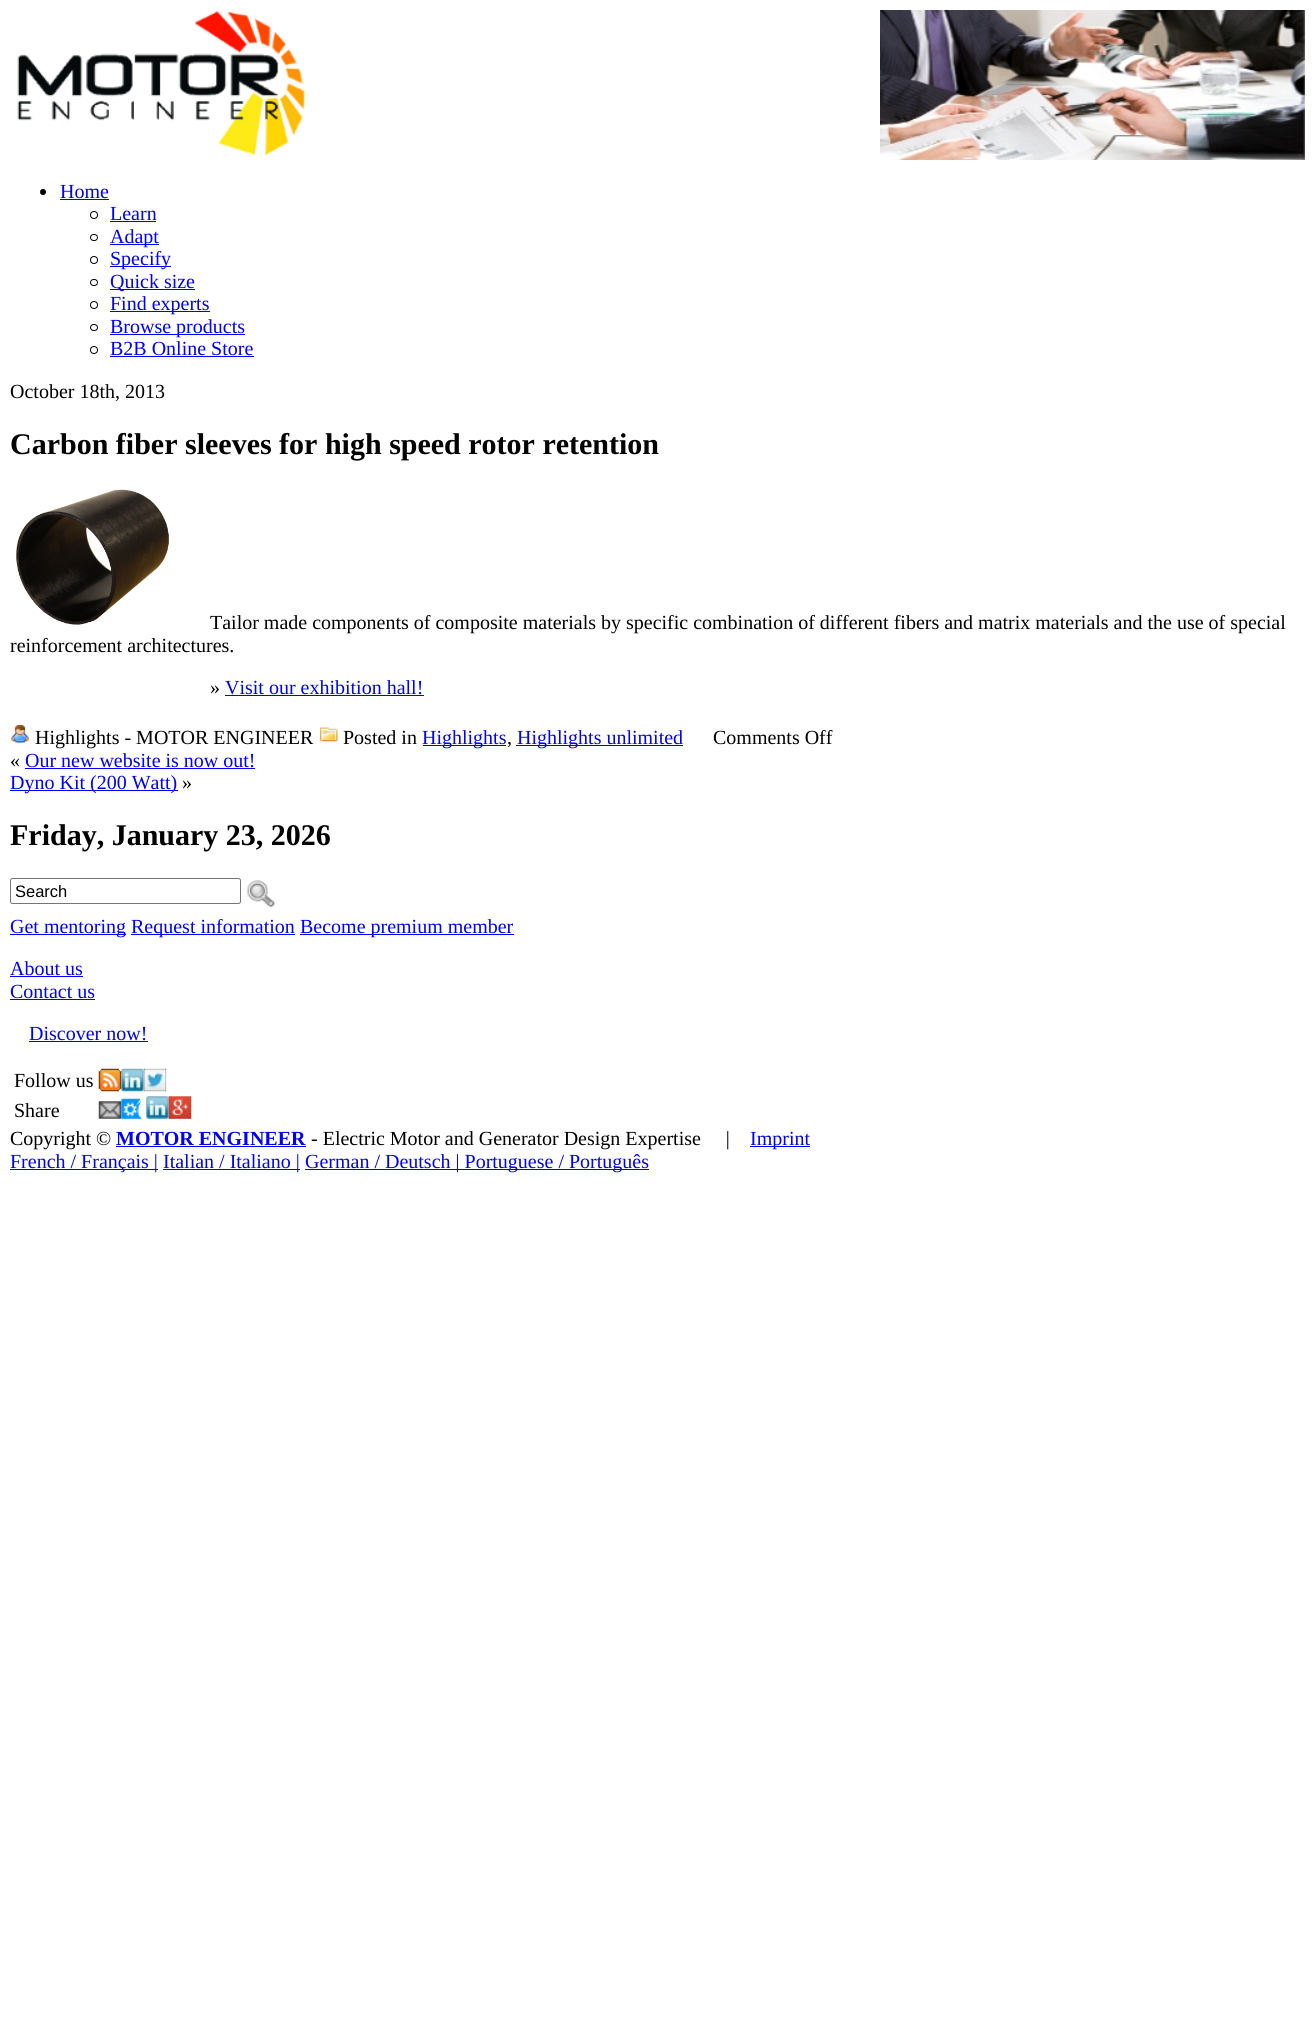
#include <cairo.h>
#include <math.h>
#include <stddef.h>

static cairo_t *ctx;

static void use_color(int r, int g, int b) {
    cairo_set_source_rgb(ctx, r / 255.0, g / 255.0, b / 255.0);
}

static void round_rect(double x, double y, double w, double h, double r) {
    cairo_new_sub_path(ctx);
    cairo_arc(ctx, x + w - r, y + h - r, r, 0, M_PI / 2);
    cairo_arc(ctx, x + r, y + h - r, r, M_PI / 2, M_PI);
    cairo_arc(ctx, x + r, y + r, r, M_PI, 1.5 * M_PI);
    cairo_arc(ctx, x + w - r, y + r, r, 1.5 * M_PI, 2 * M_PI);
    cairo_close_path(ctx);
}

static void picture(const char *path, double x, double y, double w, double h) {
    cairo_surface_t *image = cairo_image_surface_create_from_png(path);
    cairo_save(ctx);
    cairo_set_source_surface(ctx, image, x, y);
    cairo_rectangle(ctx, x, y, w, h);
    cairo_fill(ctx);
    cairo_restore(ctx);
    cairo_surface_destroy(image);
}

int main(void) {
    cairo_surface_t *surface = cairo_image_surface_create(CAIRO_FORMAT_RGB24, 1315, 2024);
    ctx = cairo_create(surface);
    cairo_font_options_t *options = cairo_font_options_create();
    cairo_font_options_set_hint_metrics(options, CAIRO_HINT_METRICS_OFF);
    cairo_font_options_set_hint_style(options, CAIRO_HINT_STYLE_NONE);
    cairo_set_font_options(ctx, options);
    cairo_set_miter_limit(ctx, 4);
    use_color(255, 255, 255);
    cairo_paint(ctx);
    picture("img1.png", 880, 10, 425, 150);
    picture("img2.png", 17, 11, 289, 145);
    use_color(0, 0, 0);
    cairo_arc(ctx, 43, 192, 3, 0, 2 * M_PI);
    cairo_fill(ctx);
    cairo_select_font_face(ctx, "Liberation Serif", CAIRO_FONT_SLANT_NORMAL, CAIRO_FONT_WEIGHT_NORMAL);
    cairo_set_font_size(ctx, 20);
    use_color(0, 0, 238);
    cairo_move_to(ctx, 60, 198);
    cairo_show_text(ctx, "Home");
    cairo_rectangle(ctx, 60, 199, 49, 1);
    cairo_fill(ctx);
    cairo_arc(ctx, 94, 215, 3.5, 0, 2 * M_PI);
    use_color(0, 0, 0);
    cairo_set_line_width(ctx, 1);
    cairo_stroke(ctx);
    use_color(0, 0, 238);
    cairo_move_to(ctx, 110, 220);
    cairo_show_text(ctx, "Learn");
    cairo_rectangle(ctx, 110, 221, 46, 1);
    cairo_fill(ctx);
    round_rect(90.5, 234.5, 7, 6, 3);
    use_color(0, 0, 0);
    cairo_stroke(ctx);
    use_color(0, 0, 238);
    cairo_rectangle(ctx, 110, 244, 49, 1);
    cairo_fill(ctx);
    cairo_move_to(ctx, 110, 243);
    cairo_show_text(ctx, "Adapt");
    cairo_new_path(ctx);
    cairo_arc(ctx, 94, 260, 3.5, 0, 2 * M_PI);
    use_color(0, 0, 0);
    cairo_stroke(ctx);
    use_color(0, 0, 238);
    cairo_rectangle(ctx, 110, 266, 61, 1);
    cairo_fill(ctx);
    cairo_move_to(ctx, 110, 265);
    cairo_show_text(ctx, "Specify");
    round_rect(90.5, 279.5, 7, 6, 3);
    use_color(0, 0, 0);
    cairo_stroke(ctx);
    use_color(0, 0, 238);
    cairo_rectangle(ctx, 110, 289, 85, 1);
    cairo_fill(ctx);
    cairo_move_to(ctx, 110, 288);
    cairo_show_text(ctx, "Quick size");
    cairo_new_path(ctx);
    cairo_arc(ctx, 94, 305, 3.5, 0, 2 * M_PI);
    use_color(0, 0, 0);
    cairo_stroke(ctx);
    use_color(0, 0, 238);
    cairo_rectangle(ctx, 110, 311, 100, 1);
    cairo_fill(ctx);
    cairo_move_to(ctx, 110, 310);
    cairo_show_text(ctx, "Find experts");
    round_rect(90.5, 324.5, 7, 6, 3);
    use_color(0, 0, 0);
    cairo_stroke(ctx);
    use_color(0, 0, 238);
    cairo_rectangle(ctx, 110, 334, 135, 1);
    cairo_fill(ctx);
    cairo_move_to(ctx, 110, 333);
    cairo_show_text(ctx, "Browse products");
    cairo_new_path(ctx);
    cairo_arc(ctx, 94, 350, 3.5, 0, 2 * M_PI);
    use_color(0, 0, 0);
    cairo_stroke(ctx);
    use_color(0, 0, 238);
    cairo_move_to(ctx, 110, 355);
    cairo_show_text(ctx, "B2B Online Store");
    cairo_rectangle(ctx, 110, 356, 144, 1);
    cairo_fill(ctx);
    use_color(0, 0, 0);
    cairo_move_to(ctx, 10, 398);
    cairo_show_text(ctx, "October 18th, 2013");
    cairo_select_font_face(ctx, "Liberation Serif", CAIRO_FONT_SLANT_NORMAL, CAIRO_FONT_WEIGHT_BOLD);
    cairo_set_font_size(ctx, 30);
    cairo_move_to(ctx, 10, 454);
    cairo_show_text(ctx, "Carbon fiber sleeves for high speed rotor retention");
    picture("img3.png", 16, 489, 153, 136);
    cairo_select_font_face(ctx, "Liberation Serif", CAIRO_FONT_SLANT_NORMAL, CAIRO_FONT_WEIGHT_NORMAL);
    cairo_set_font_size(ctx, 20);
    cairo_move_to(ctx, 210, 629);
    cairo_show_text(ctx, "Tailor made components of composite materials by specific combination of different fibers and matrix materials and the use of special");
    cairo_move_to(ctx, 10, 652);
    cairo_show_text(ctx, "reinforcement architectures.");
    cairo_move_to(ctx, 210, 694);
    cairo_show_text(ctx, "»");
    use_color(0, 0, 238);
    cairo_move_to(ctx, 225, 694);
    cairo_show_text(ctx, "Visit our exhibition hall!");
    cairo_rectangle(ctx, 225, 695, 199, 1);
    cairo_fill(ctx);
    picture("img4.png", 11, 724, 18, 19);
    use_color(0, 0, 0);
    cairo_move_to(ctx, 35, 744);
    cairo_show_text(ctx, "Highlights - MOTOR ENGINEER");
    picture("img5.png", 319, 727, 19, 15);
    cairo_move_to(ctx, 343, 744);
    cairo_show_text(ctx, "Posted in");
    use_color(0, 0, 238);
    cairo_rectangle(ctx, 423, 745, 83, 1);
    cairo_fill(ctx);
    cairo_move_to(ctx, 422, 744);
    cairo_show_text(ctx, "Highlights");
    use_color(0, 0, 0);
    cairo_move_to(ctx, 507, 744);
    cairo_show_text(ctx, ",");
    use_color(0, 0, 238);
    cairo_rectangle(ctx, 516, 745, 167, 1);
    cairo_fill(ctx);
    cairo_move_to(ctx, 517, 744);
    cairo_show_text(ctx, "Highlights unlimited");
    use_color(0, 0, 0);
    cairo_move_to(ctx, 713, 744);
    cairo_show_text(ctx, "Comments Off");
    cairo_move_to(ctx, 10, 767);
    cairo_show_text(ctx, "«");
    use_color(0, 0, 238);
    cairo_move_to(ctx, 25, 767);
    cairo_show_text(ctx, "Our new website is now out!");
    cairo_rectangle(ctx, 25, 768, 230, 1);
    cairo_fill(ctx);
    cairo_rectangle(ctx, 10, 790, 168, 1);
    cairo_fill(ctx);
    cairo_move_to(ctx, 10, 789);
    cairo_show_text(ctx, "Dyno Kit (200 Watt)");
    use_color(0, 0, 0);
    cairo_move_to(ctx, 182, 789);
    cairo_show_text(ctx, "»");
    cairo_select_font_face(ctx, "Liberation Serif", CAIRO_FONT_SLANT_NORMAL, CAIRO_FONT_WEIGHT_BOLD);
    cairo_set_font_size(ctx, 30);
    cairo_move_to(ctx, 10, 845);
    cairo_show_text(ctx, "Friday, January 23, 2026");
    round_rect(10.5, 878.5, 230, 25, 2);
    use_color(118, 118, 118);
    cairo_stroke(ctx);
    cairo_select_font_face(ctx, "Liberation Sans", CAIRO_FONT_SLANT_NORMAL, CAIRO_FONT_WEIGHT_NORMAL);
    cairo_set_font_size(ctx, 16.5);
    use_color(0, 0, 0);
    cairo_move_to(ctx, 15, 897);
    cairo_show_text(ctx, "Search");
    picture("img6.png", 247, 880, 29, 28);
    use_color(0, 0, 238);
    cairo_rectangle(ctx, 10, 934, 116, 1);
    cairo_fill(ctx);
    cairo_select_font_face(ctx, "Liberation Serif", CAIRO_FONT_SLANT_NORMAL, CAIRO_FONT_WEIGHT_NORMAL);
    cairo_set_font_size(ctx, 20);
    cairo_move_to(ctx, 10, 933);
    cairo_show_text(ctx, "Get mentoring");
    cairo_rectangle(ctx, 131, 934, 164, 1);
    cairo_fill(ctx);
    cairo_move_to(ctx, 131, 933);
    cairo_show_text(ctx, "Request information");
    cairo_rectangle(ctx, 300, 934, 214, 1);
    cairo_fill(ctx);
    cairo_move_to(ctx, 300, 933);
    cairo_show_text(ctx, "Become premium member");
    cairo_move_to(ctx, 10, 975);
    cairo_show_text(ctx, "About us");
    cairo_rectangle(ctx, 10, 976, 73, 1);
    cairo_fill(ctx);
    cairo_move_to(ctx, 10, 998);
    cairo_show_text(ctx, "Contact us");
    cairo_rectangle(ctx, 10, 999, 85, 1);
    cairo_fill(ctx);
    cairo_move_to(ctx, 29, 1040);
    cairo_show_text(ctx, "Discover now!");
    cairo_rectangle(ctx, 29, 1041, 119, 1);
    cairo_fill(ctx);
    use_color(0, 0, 0);
    cairo_move_to(ctx, 14, 1087);
    cairo_show_text(ctx, "Follow us");
    picture("img7.png", 98, 1068, 24, 24);
    picture("img8.png", 121, 1068, 23, 24);
    picture("img9.png", 143, 1068, 24, 24);
    cairo_move_to(ctx, 14, 1117);
    cairo_show_text(ctx, "Share");
    picture("img10.png", 98, 1101, 24, 18);
    picture("img11.png", 121, 1098, 21, 21);
    picture("img12.png", 146, 1096, 23, 23);
    picture("img13.png", 168, 1096, 24, 23);
    cairo_move_to(ctx, 10, 1145);
    cairo_show_text(ctx, "Copyright ©");
    cairo_select_font_face(ctx, "Liberation Serif", CAIRO_FONT_SLANT_NORMAL, CAIRO_FONT_WEIGHT_BOLD);
    use_color(0, 0, 238);
    cairo_move_to(ctx, 116, 1145);
    cairo_show_text(ctx, "MOTOR ENGINEER");
    cairo_rectangle(ctx, 116, 1146, 190, 1);
    cairo_fill(ctx);
    cairo_select_font_face(ctx, "Liberation Serif", CAIRO_FONT_SLANT_NORMAL, CAIRO_FONT_WEIGHT_NORMAL);
    use_color(0, 0, 0);
    cairo_move_to(ctx, 311, 1145);
    cairo_show_text(ctx, "- Electric Motor and Generator Design Expertise     |");
    use_color(0, 0, 238);
    cairo_rectangle(ctx, 750, 1146, 60, 1);
    cairo_fill(ctx);
    cairo_move_to(ctx, 750, 1145);
    cairo_show_text(ctx, "Imprint");
    cairo_rectangle(ctx, 10, 1169, 148, 1);
    cairo_fill(ctx);
    cairo_move_to(ctx, 10, 1168);
    cairo_show_text(ctx, "French / Français |");
    cairo_rectangle(ctx, 163, 1169, 137, 1);
    cairo_fill(ctx);
    cairo_move_to(ctx, 163, 1168);
    cairo_show_text(ctx, "Italian / Italiano |");
    cairo_rectangle(ctx, 305, 1169, 344, 1);
    cairo_fill(ctx);
    cairo_move_to(ctx, 305, 1168);
    cairo_show_text(ctx, "German / Deutsch | Portuguese / Português");
    cairo_surface_write_to_png(surface, "result.png");
    cairo_font_options_destroy(options);
    cairo_destroy(ctx);
    cairo_surface_destroy(surface);
    return 0;
}
